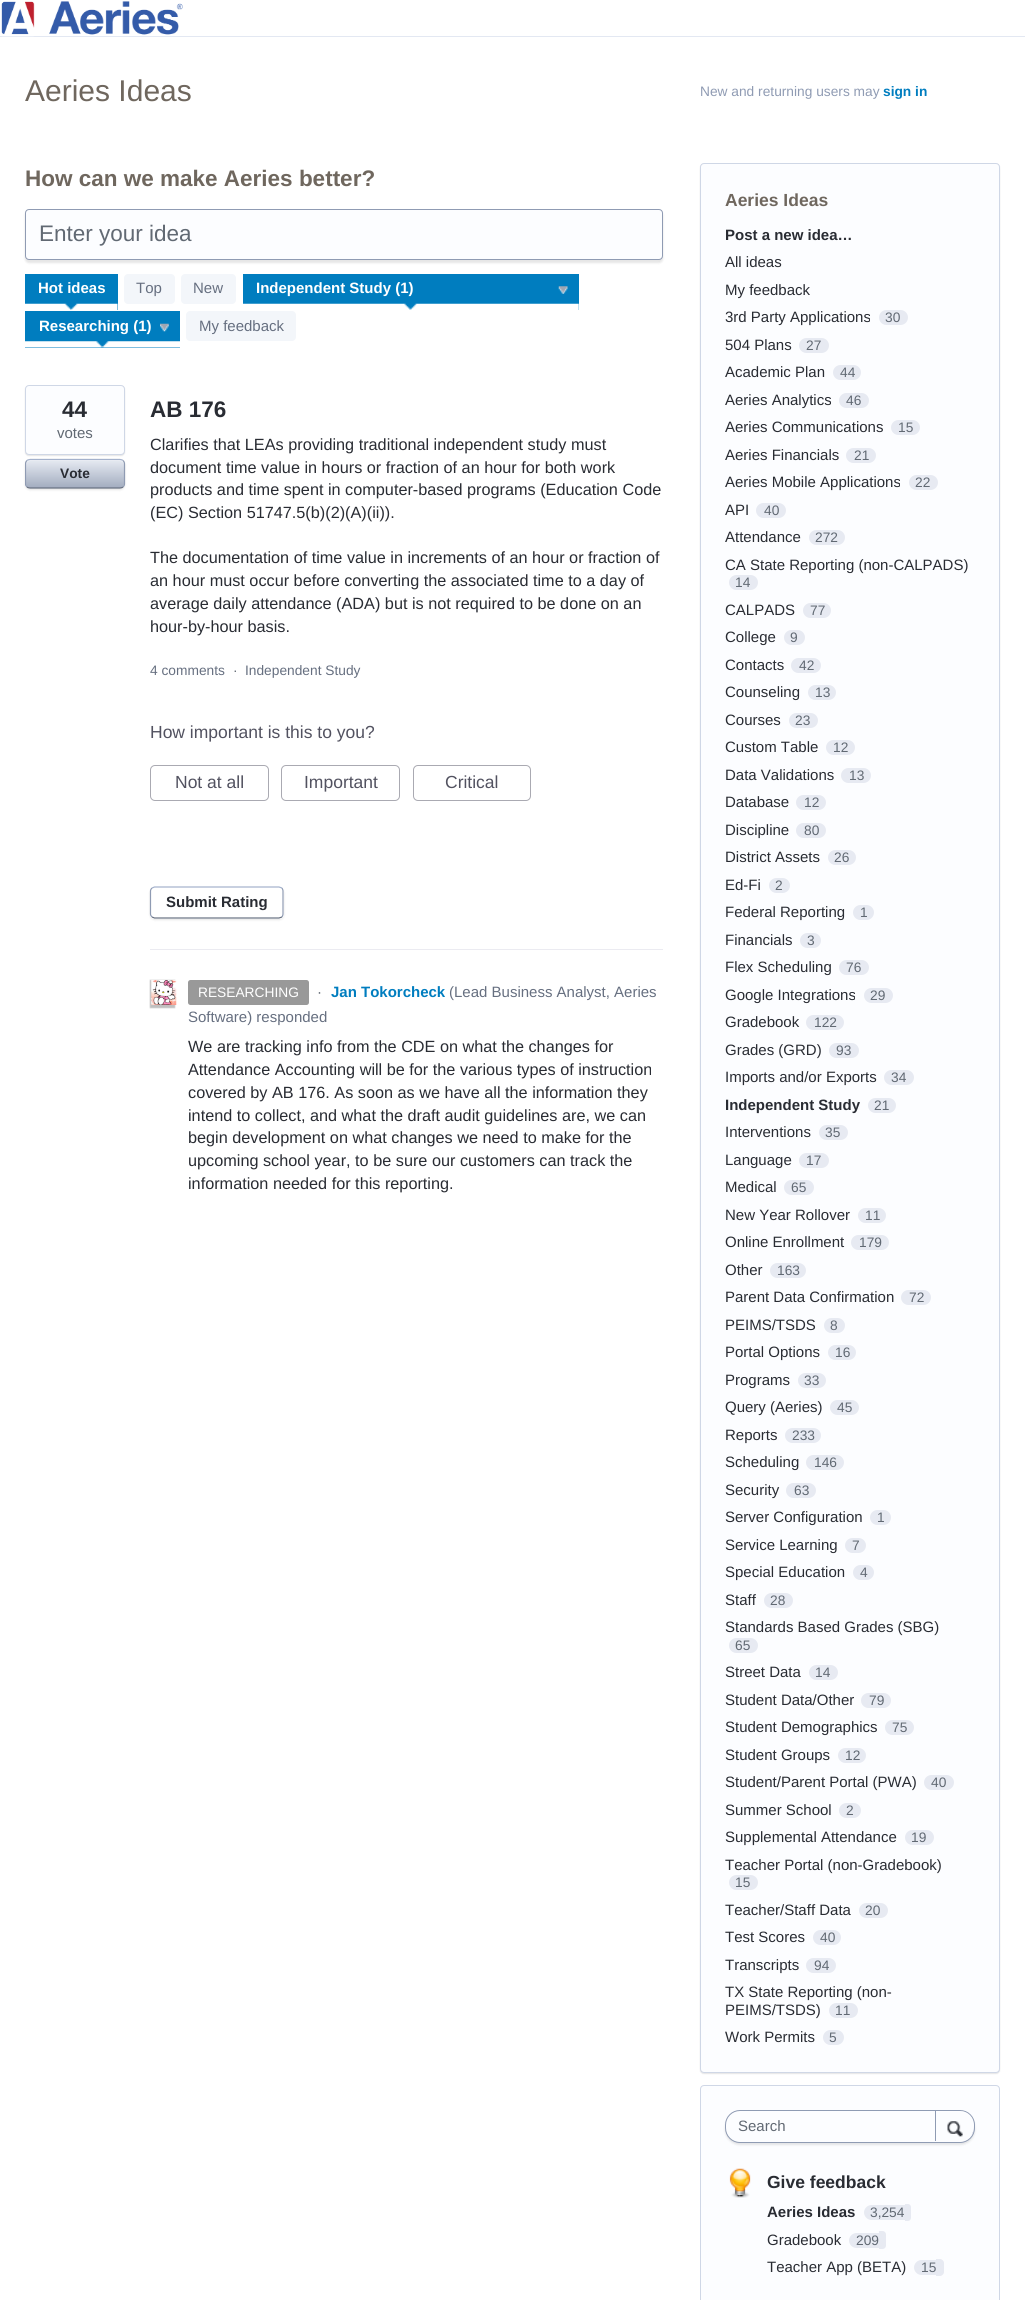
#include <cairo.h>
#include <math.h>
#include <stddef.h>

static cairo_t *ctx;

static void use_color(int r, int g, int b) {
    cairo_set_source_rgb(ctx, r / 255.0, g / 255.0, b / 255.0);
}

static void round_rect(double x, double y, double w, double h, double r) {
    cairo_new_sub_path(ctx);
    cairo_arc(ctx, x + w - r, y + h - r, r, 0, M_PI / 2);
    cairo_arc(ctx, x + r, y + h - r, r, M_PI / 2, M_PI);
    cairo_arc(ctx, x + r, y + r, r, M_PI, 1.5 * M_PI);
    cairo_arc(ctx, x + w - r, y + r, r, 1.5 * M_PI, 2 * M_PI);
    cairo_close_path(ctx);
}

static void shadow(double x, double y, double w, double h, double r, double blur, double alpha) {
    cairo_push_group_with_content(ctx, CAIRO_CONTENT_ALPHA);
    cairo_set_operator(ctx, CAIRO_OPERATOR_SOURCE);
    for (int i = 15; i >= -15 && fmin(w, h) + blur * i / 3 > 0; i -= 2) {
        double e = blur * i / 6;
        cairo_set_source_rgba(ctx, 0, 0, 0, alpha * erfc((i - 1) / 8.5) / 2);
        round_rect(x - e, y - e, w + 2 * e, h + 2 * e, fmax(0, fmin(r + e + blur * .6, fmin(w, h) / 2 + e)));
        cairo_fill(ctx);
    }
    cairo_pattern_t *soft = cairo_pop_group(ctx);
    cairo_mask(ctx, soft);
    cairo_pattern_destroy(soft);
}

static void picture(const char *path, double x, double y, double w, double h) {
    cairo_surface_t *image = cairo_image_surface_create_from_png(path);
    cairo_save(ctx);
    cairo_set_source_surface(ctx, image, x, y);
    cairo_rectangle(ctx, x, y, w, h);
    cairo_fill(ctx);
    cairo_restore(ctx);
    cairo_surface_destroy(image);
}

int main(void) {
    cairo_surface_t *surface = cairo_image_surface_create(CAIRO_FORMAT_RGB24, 1025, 2300);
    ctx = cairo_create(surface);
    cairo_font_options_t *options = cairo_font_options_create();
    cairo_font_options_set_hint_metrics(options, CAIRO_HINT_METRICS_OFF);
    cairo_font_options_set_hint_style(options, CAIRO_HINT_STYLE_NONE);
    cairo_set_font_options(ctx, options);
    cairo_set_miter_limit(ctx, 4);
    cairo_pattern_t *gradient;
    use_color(255, 255, 255);
    cairo_paint(ctx);
    use_color(227, 232, 242);
    cairo_rectangle(ctx, 0, 36, 1025, 1);
    cairo_fill(ctx);
    picture("img1.png", 1, 1, 182, 36);
    cairo_select_font_face(ctx, "Liberation Sans", CAIRO_FONT_SLANT_NORMAL, CAIRO_FONT_WEIGHT_NORMAL);
    cairo_set_font_size(ctx, 30);
    use_color(111, 103, 94);
    cairo_move_to(ctx, 25, 101);
    cairo_show_text(ctx, "Aeries Ideas");
    cairo_select_font_face(ctx, "Liberation Sans", CAIRO_FONT_SLANT_NORMAL, CAIRO_FONT_WEIGHT_BOLD);
    cairo_set_font_size(ctx, 22.5);
    cairo_move_to(ctx, 25, 186);
    cairo_show_text(ctx, "How can we make Aeries better?");
    use_color(0, 0, 0);
    shadow(25, 211, 638, 52, 4, 1, 0.1);
    use_color(252, 253, 255);
    round_rect(25.5, 209.5, 637, 50, 3.5);
    cairo_fill_preserve(ctx);
    use_color(143, 155, 179);
    cairo_set_line_width(ctx, 1);
    cairo_stroke(ctx);
    cairo_select_font_face(ctx, "Liberation Sans", CAIRO_FONT_SLANT_NORMAL, CAIRO_FONT_WEIGHT_NORMAL);
    use_color(97, 105, 115);
    cairo_move_to(ctx, 39, 241);
    cairo_show_text(ctx, "Enter your idea");
    use_color(0, 125, 191);
    cairo_rectangle(ctx, 25, 274, 93, 36);
    cairo_fill(ctx);
    picture("img2.png", 25, 303, 93, 7);
    cairo_select_font_face(ctx, "Liberation Sans", CAIRO_FONT_SLANT_NORMAL, CAIRO_FONT_WEIGHT_BOLD);
    cairo_set_font_size(ctx, 15);
    use_color(255, 255, 255);
    cairo_move_to(ctx, 38, 293);
    cairo_show_text(ctx, "Hot ideas");
    use_color(243, 246, 250);
    round_rect(124, 274, 51, 30, 4);
    cairo_fill(ctx);
    cairo_select_font_face(ctx, "Liberation Sans", CAIRO_FONT_SLANT_NORMAL, CAIRO_FONT_WEIGHT_NORMAL);
    use_color(102, 111, 128);
    cairo_move_to(ctx, 136, 293);
    cairo_show_text(ctx, "Top");
    use_color(243, 246, 250);
    round_rect(181, 274, 55, 30, 4);
    cairo_fill(ctx);
    use_color(102, 111, 128);
    cairo_move_to(ctx, 193, 293);
    cairo_show_text(ctx, "New");
    use_color(0, 125, 191);
    cairo_rectangle(ctx, 243, 274, 336, 36);
    cairo_fill(ctx);
    picture("img3.png", 243, 303, 336, 7);
    picture("img4.png", 558, 286, 10, 8);
    cairo_select_font_face(ctx, "Liberation Sans", CAIRO_FONT_SLANT_NORMAL, CAIRO_FONT_WEIGHT_BOLD);
    use_color(255, 255, 255);
    cairo_move_to(ctx, 256, 293);
    cairo_show_text(ctx, "Independent Study (1)");
    use_color(0, 125, 191);
    cairo_rectangle(ctx, 25, 311, 155, 37);
    cairo_fill(ctx);
    picture("img5.png", 25, 341, 155, 7);
    picture("img6.png", 160, 323, 9, 9);
    use_color(255, 255, 255);
    cairo_move_to(ctx, 39, 331);
    cairo_show_text(ctx, "Researching (1)");
    use_color(243, 246, 250);
    round_rect(186, 311, 110, 30, 4);
    cairo_fill(ctx);
    cairo_select_font_face(ctx, "Liberation Sans", CAIRO_FONT_SLANT_NORMAL, CAIRO_FONT_WEIGHT_NORMAL);
    use_color(102, 111, 128);
    cairo_move_to(ctx, 199, 331);
    cairo_show_text(ctx, "My feedback");
    use_color(0, 0, 0);
    shadow(25, 386, 100, 70, 4, 0.5, 0.1);
    use_color(252, 253, 255);
    round_rect(25.5, 385.5, 99, 69, 3.5);
    cairo_fill_preserve(ctx);
    use_color(207, 215, 230);
    cairo_stroke(ctx);
    cairo_select_font_face(ctx, "Liberation Sans", CAIRO_FONT_SLANT_NORMAL, CAIRO_FONT_WEIGHT_BOLD);
    cairo_set_font_size(ctx, 22.5);
    use_color(41, 44, 51);
    cairo_move_to(ctx, 62, 417);
    cairo_show_text(ctx, "44");
    cairo_select_font_face(ctx, "Liberation Sans", CAIRO_FONT_SLANT_NORMAL, CAIRO_FONT_WEIGHT_NORMAL);
    cairo_set_font_size(ctx, 15);
    use_color(97, 105, 115);
    cairo_move_to(ctx, 57, 438);
    cairo_show_text(ctx, "votes");
    use_color(0, 0, 0);
    shadow(25, 460, 100, 30, 5, 1, 0.1);
    gradient = cairo_pattern_create_linear(26, 460, 26, 488);
    cairo_pattern_add_color_stop_rgba(gradient, 0, 0.902, 0.918, 0.949, 1);
    cairo_pattern_add_color_stop_rgba(gradient, 1, 0.635, 0.675, 0.749, 1);
    cairo_set_source(ctx, gradient);
    cairo_pattern_destroy(gradient);
    round_rect(26, 460, 98, 28, 4);
    cairo_fill(ctx);
    cairo_set_source_rgba(ctx, 1, 1, 1, 0.5);
    cairo_new_path(ctx);
    cairo_move_to(ctx, 30, 461);
    cairo_line_to(ctx, 120, 461);
    cairo_curve_to(ctx, 122, 461, 124, 463, 124, 465);
    cairo_curve_to(ctx, 124, 456, 109, 460, 105, 460);
    cairo_line_to(ctx, 45, 460);
    cairo_curve_to(ctx, 41, 460, 26, 456, 26, 465);
    cairo_curve_to(ctx, 26, 463, 28, 461, 30, 461);
    cairo_close_path(ctx);
    cairo_fill(ctx);
    cairo_new_path(ctx);
    cairo_move_to(ctx, 27, 460.5);
    cairo_curve_to(ctx, 27.5, 460, 29, 459.5, 30, 459.5);
    cairo_line_to(ctx, 120, 459.5);
    cairo_curve_to(ctx, 121, 459.5, 122.5, 460, 123, 460.5);
    use_color(163, 177, 204);
    cairo_set_line_width(ctx, 1.2);
    cairo_stroke(ctx);
    cairo_new_path(ctx);
    cairo_move_to(ctx, 123, 460.5);
    cairo_curve_to(ctx, 124, 461.5, 124.5, 462.5, 124.5, 464);
    cairo_line_to(ctx, 124.5, 484);
    cairo_curve_to(ctx, 124.5, 485, 124, 486, 123, 487);
    use_color(143, 155, 179);
    cairo_stroke(ctx);
    cairo_new_path(ctx);
    cairo_move_to(ctx, 123, 487);
    cairo_curve_to(ctx, 122.5, 487.5, 121, 488, 120, 488);
    cairo_line_to(ctx, 30, 488);
    cairo_curve_to(ctx, 29, 488, 27.5, 487.5, 27, 487);
    use_color(102, 111, 128);
    cairo_stroke(ctx);
    cairo_save(ctx);
    cairo_rectangle(ctx, 25, 69, 975, 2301);
    cairo_clip(ctx);
    cairo_new_path(ctx);
    cairo_move_to(ctx, 27, 487);
    cairo_curve_to(ctx, 26, 486, 25.5, 485, 25.5, 484);
    cairo_line_to(ctx, 25.5, 464);
    cairo_curve_to(ctx, 25.5, 462.5, 26, 461.5, 27, 460.5);
    use_color(143, 155, 179);
    cairo_stroke(ctx);
    cairo_restore(ctx);
    cairo_select_font_face(ctx, "Liberation Sans", CAIRO_FONT_SLANT_NORMAL, CAIRO_FONT_WEIGHT_BOLD);
    cairo_set_font_size(ctx, 13.75);
    use_color(41, 44, 51);
    cairo_move_to(ctx, 60, 478);
    cairo_show_text(ctx, "Vote");
    cairo_set_font_size(ctx, 22.5);
    cairo_move_to(ctx, 150, 417);
    cairo_show_text(ctx, "AB 176");
    cairo_select_font_face(ctx, "Liberation Sans", CAIRO_FONT_SLANT_NORMAL, CAIRO_FONT_WEIGHT_NORMAL);
    cairo_set_font_size(ctx, 16.25);
    cairo_move_to(ctx, 150, 450);
    cairo_show_text(ctx, "Clarifies that LEAs providing traditional independent study must");
    cairo_move_to(ctx, 150, 473);
    cairo_show_text(ctx, "document time value in hours or fraction of an hour for both work");
    cairo_move_to(ctx, 150, 495);
    cairo_show_text(ctx, "products and time spent in computer-based programs (Education Code");
    cairo_move_to(ctx, 150, 518);
    cairo_show_text(ctx, "(EC) Section 51747.5(b)(2)(A)(ii)).");
    cairo_move_to(ctx, 150, 563);
    cairo_show_text(ctx, "The documentation of time value in increments of an hour or fraction of");
    cairo_move_to(ctx, 150, 586);
    cairo_show_text(ctx, "an hour must occur before converting the associated time to a day of");
    cairo_move_to(ctx, 150, 609);
    cairo_show_text(ctx, "average daily attendance (ADA) but is not required to be done on an");
    cairo_move_to(ctx, 150, 632);
    cairo_show_text(ctx, "hour-by-hour basis.");
    cairo_set_font_size(ctx, 13.75);
    use_color(102, 111, 128);
    cairo_move_to(ctx, 150, 675);
    cairo_show_text(ctx, "4 comments");
    use_color(97, 105, 115);
    cairo_move_to(ctx, 233, 675);
    cairo_show_text(ctx, "·");
    use_color(102, 111, 128);
    cairo_move_to(ctx, 245, 675);
    cairo_show_text(ctx, "Independent Study");
    use_color(235, 235, 241);
    cairo_rectangle(ctx, 150, 949, 513, 1);
    cairo_fill(ctx);
    cairo_set_font_size(ctx, 17.5);
    use_color(82, 82, 96);
    cairo_move_to(ctx, 150, 738);
    cairo_show_text(ctx, "How important is this to you?");
    round_rect(150.5, 765.5, 118, 35, 4.5);
    use_color(170, 170, 178);
    cairo_set_line_width(ctx, 1);
    cairo_stroke(ctx);
    use_color(82, 82, 96);
    cairo_move_to(ctx, 175, 788);
    cairo_show_text(ctx, "Not at all");
    round_rect(281.5, 765.5, 118, 35, 4.5);
    use_color(170, 170, 178);
    cairo_stroke(ctx);
    use_color(82, 82, 96);
    cairo_move_to(ctx, 304, 788);
    cairo_show_text(ctx, "Important");
    round_rect(413.5, 765.5, 117, 35, 4.5);
    use_color(170, 170, 178);
    cairo_stroke(ctx);
    use_color(82, 82, 96);
    cairo_move_to(ctx, 445, 788);
    cairo_show_text(ctx, "Critical");
    cairo_save(ctx);
    cairo_set_fill_rule(ctx, CAIRO_FILL_RULE_EVEN_ODD);
    cairo_new_path(ctx);
    cairo_move_to(ctx, 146, 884);
    cairo_line_to(ctx, 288, 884);
    cairo_line_to(ctx, 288, 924);
    cairo_line_to(ctx, 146, 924);
    cairo_close_path(ctx);
    cairo_move_to(ctx, 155, 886);
    cairo_line_to(ctx, 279, 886);
    cairo_curve_to(ctx, 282, 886, 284, 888, 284, 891);
    cairo_line_to(ctx, 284, 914);
    cairo_curve_to(ctx, 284, 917, 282, 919, 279, 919);
    cairo_line_to(ctx, 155, 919);
    cairo_curve_to(ctx, 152, 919, 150, 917, 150, 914);
    cairo_line_to(ctx, 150, 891);
    cairo_curve_to(ctx, 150, 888, 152, 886, 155, 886);
    cairo_close_path(ctx);
    cairo_clip(ctx);
    use_color(0, 0, 0);
    shadow(150, 888, 134, 32, 5, 1, 0.1);
    cairo_restore(ctx);
    cairo_new_path(ctx);
    cairo_move_to(ctx, 152, 888);
    cairo_line_to(ctx, 154.5, 887);
    cairo_line_to(ctx, 258, 887);
    cairo_line_to(ctx, 279, 887);
    cairo_line_to(ctx, 282, 888);
    use_color(163, 177, 204);
    cairo_set_line_width(ctx, 1.2);
    cairo_stroke(ctx);
    cairo_new_path(ctx);
    cairo_move_to(ctx, 282, 888);
    cairo_curve_to(ctx, 282.5, 889, 283, 890, 283, 891);
    cairo_line_to(ctx, 283, 914);
    cairo_curve_to(ctx, 283, 915, 282.5, 916, 282, 917);
    use_color(143, 155, 179);
    cairo_stroke(ctx);
    cairo_new_path(ctx);
    cairo_move_to(ctx, 282, 917);
    cairo_line_to(ctx, 279, 918);
    cairo_line_to(ctx, 154.5, 918);
    cairo_line_to(ctx, 152, 917);
    use_color(102, 111, 128);
    cairo_stroke(ctx);
    cairo_new_path(ctx);
    cairo_move_to(ctx, 152, 917);
    cairo_curve_to(ctx, 151, 916, 150.5, 915, 150.5, 914);
    cairo_line_to(ctx, 150.5, 891);
    cairo_curve_to(ctx, 150.5, 890, 151, 889, 152, 888);
    use_color(143, 155, 179);
    cairo_stroke(ctx);
    cairo_select_font_face(ctx, "Liberation Sans", CAIRO_FONT_SLANT_NORMAL, CAIRO_FONT_WEIGHT_BOLD);
    cairo_set_font_size(ctx, 15);
    use_color(41, 44, 51);
    cairo_move_to(ctx, 166, 907);
    cairo_show_text(ctx, "Submit Rating");
    use_color(0, 0, 0);
    shadow(150, 980, 25, 28, 0, 0.5, 0.25);
    picture("img7.png", 151, 980, 26, 25);
    use_color(0, 125, 191);
    cairo_move_to(ctx, 331, 997);
    cairo_show_text(ctx, "Jan Tokorcheck");
    cairo_select_font_face(ctx, "Liberation Sans", CAIRO_FONT_SLANT_NORMAL, CAIRO_FONT_WEIGHT_NORMAL);
    use_color(102, 111, 128);
    cairo_move_to(ctx, 449, 997);
    cairo_show_text(ctx, "(Lead Business Analyst, Aeries");
    cairo_move_to(ctx, 188, 1022);
    cairo_show_text(ctx, "Software) responded");
    use_color(153, 153, 153);
    round_rect(188, 980, 121, 25, 2.5);
    cairo_fill(ctx);
    cairo_set_font_size(ctx, 13.75);
    use_color(255, 255, 255);
    cairo_move_to(ctx, 198, 997);
    cairo_show_text(ctx, "RESEARCHING");
    cairo_set_font_size(ctx, 15);
    use_color(97, 105, 115);
    cairo_move_to(ctx, 317, 997);
    cairo_show_text(ctx, "·");
    cairo_set_font_size(ctx, 16.25);
    use_color(41, 44, 51);
    cairo_move_to(ctx, 188, 1052);
    cairo_show_text(ctx, "We are tracking info from the CDE on what the changes for");
    cairo_move_to(ctx, 188, 1075);
    cairo_show_text(ctx, "Attendance Accounting will be for the various types of instruction");
    cairo_move_to(ctx, 188, 1098);
    cairo_show_text(ctx, "covered by AB 176. As soon as we have all the information they");
    cairo_move_to(ctx, 188, 1121);
    cairo_show_text(ctx, "intend to collect, and what the draft audit guidelines are, we can");
    cairo_move_to(ctx, 188, 1143);
    cairo_show_text(ctx, "begin development on what changes we need to make for the");
    cairo_move_to(ctx, 188, 1166);
    cairo_show_text(ctx, "upcoming school year, to be sure our customers can track the");
    cairo_move_to(ctx, 188, 1189);
    cairo_show_text(ctx, "information needed for this reporting.");
    cairo_set_font_size(ctx, 13.75);
    use_color(143, 155, 179);
    cairo_move_to(ctx, 700, 96);
    cairo_show_text(ctx, "New and returning users may");
    cairo_select_font_face(ctx, "Liberation Sans", CAIRO_FONT_SLANT_NORMAL, CAIRO_FONT_WEIGHT_BOLD);
    use_color(0, 125, 191);
    cairo_move_to(ctx, 883, 96);
    cairo_show_text(ctx, "sign in");
    use_color(0, 0, 0);
    shadow(700, 164, 300, 1910, 4, 0.5, 0.1);
    use_color(252, 253, 255);
    round_rect(700.5, 163.5, 299, 1909, 3.5);
    cairo_fill_preserve(ctx);
    use_color(207, 215, 230);
    cairo_set_line_width(ctx, 1);
    cairo_stroke(ctx);
    cairo_set_font_size(ctx, 17.5);
    use_color(111, 103, 94);
    cairo_move_to(ctx, 725, 206);
    cairo_show_text(ctx, "Aeries Ideas");
    cairo_set_font_size(ctx, 15);
    use_color(41, 44, 51);
    cairo_move_to(ctx, 725, 240);
    cairo_show_text(ctx, "Post a new idea…");
    cairo_select_font_face(ctx, "Liberation Sans", CAIRO_FONT_SLANT_NORMAL, CAIRO_FONT_WEIGHT_NORMAL);
    cairo_move_to(ctx, 725, 267);
    cairo_show_text(ctx, "All ideas");
    cairo_move_to(ctx, 725, 295);
    cairo_show_text(ctx, "My feedback");
    cairo_move_to(ctx, 725, 322);
    cairo_show_text(ctx, "3rd Party Applications");
    use_color(231, 234, 242);
    round_rect(879, 310, 29, 15, 7.5);
    cairo_fill(ctx);
    cairo_set_font_size(ctx, 13.75);
    use_color(97, 105, 115);
    cairo_move_to(ctx, 885, 322);
    cairo_show_text(ctx, "30");
    cairo_set_font_size(ctx, 15);
    use_color(41, 44, 51);
    cairo_move_to(ctx, 725, 350);
    cairo_show_text(ctx, "504 Plans");
    use_color(231, 234, 242);
    round_rect(799, 338, 30, 15, 7.5);
    cairo_fill(ctx);
    cairo_set_font_size(ctx, 13.75);
    use_color(97, 105, 115);
    cairo_move_to(ctx, 806, 350);
    cairo_show_text(ctx, "27");
    cairo_set_font_size(ctx, 15);
    use_color(41, 44, 51);
    cairo_move_to(ctx, 725, 377);
    cairo_show_text(ctx, "Academic Plan");
    use_color(231, 234, 242);
    round_rect(833, 365, 28, 15, 7.5);
    cairo_fill(ctx);
    cairo_set_font_size(ctx, 13.75);
    use_color(97, 105, 115);
    cairo_move_to(ctx, 840, 377);
    cairo_show_text(ctx, "44");
    cairo_set_font_size(ctx, 15);
    use_color(41, 44, 51);
    cairo_move_to(ctx, 725, 405);
    cairo_show_text(ctx, "Aeries Analytics");
    use_color(231, 234, 242);
    round_rect(839, 393, 30, 15, 7.5);
    cairo_fill(ctx);
    cairo_set_font_size(ctx, 13.75);
    use_color(97, 105, 115);
    cairo_move_to(ctx, 846, 405);
    cairo_show_text(ctx, "46");
    cairo_set_font_size(ctx, 15);
    use_color(41, 44, 51);
    cairo_move_to(ctx, 725, 432);
    cairo_show_text(ctx, "Aeries Communications");
    use_color(231, 234, 242);
    round_rect(891, 420, 29, 15, 7.5);
    cairo_fill(ctx);
    cairo_set_font_size(ctx, 13.75);
    use_color(97, 105, 115);
    cairo_move_to(ctx, 898, 432);
    cairo_show_text(ctx, "15");
    cairo_set_font_size(ctx, 15);
    use_color(41, 44, 51);
    cairo_move_to(ctx, 725, 460);
    cairo_show_text(ctx, "Aeries Financials");
    use_color(231, 234, 242);
    round_rect(846, 448, 30, 15, 7.5);
    cairo_fill(ctx);
    cairo_set_font_size(ctx, 13.75);
    use_color(97, 105, 115);
    cairo_move_to(ctx, 854, 460);
    cairo_show_text(ctx, "21");
    cairo_set_font_size(ctx, 15);
    use_color(41, 44, 51);
    cairo_move_to(ctx, 725, 487);
    cairo_show_text(ctx, "Aeries Mobile Applications");
    use_color(231, 234, 242);
    round_rect(909, 475, 29, 15, 7.5);
    cairo_fill(ctx);
    cairo_set_font_size(ctx, 13.75);
    use_color(97, 105, 115);
    cairo_move_to(ctx, 915, 487);
    cairo_show_text(ctx, "22");
    cairo_set_font_size(ctx, 15);
    use_color(41, 44, 51);
    cairo_move_to(ctx, 725, 515);
    cairo_show_text(ctx, "API");
    use_color(231, 234, 242);
    round_rect(756, 503, 30, 15, 7.5);
    cairo_fill(ctx);
    cairo_set_font_size(ctx, 13.75);
    use_color(97, 105, 115);
    cairo_move_to(ctx, 764, 515);
    cairo_show_text(ctx, "40");
    cairo_set_font_size(ctx, 15);
    use_color(41, 44, 51);
    cairo_move_to(ctx, 725, 542);
    cairo_show_text(ctx, "Attendance");
    use_color(231, 234, 242);
    round_rect(809, 530, 36, 15, 7.5);
    cairo_fill(ctx);
    cairo_set_font_size(ctx, 13.75);
    use_color(97, 105, 115);
    cairo_move_to(ctx, 815, 542);
    cairo_show_text(ctx, "272");
    cairo_set_font_size(ctx, 15);
    use_color(41, 44, 51);
    cairo_move_to(ctx, 725, 570);
    cairo_show_text(ctx, "CA State Reporting (non-CALPADS)");
    use_color(231, 234, 242);
    round_rect(729, 575, 29, 15, 7.5);
    cairo_fill(ctx);
    cairo_set_font_size(ctx, 13.75);
    use_color(97, 105, 115);
    cairo_move_to(ctx, 735, 587);
    cairo_show_text(ctx, "14");
    cairo_set_font_size(ctx, 15);
    use_color(41, 44, 51);
    cairo_move_to(ctx, 725, 615);
    cairo_show_text(ctx, "CALPADS");
    use_color(231, 234, 242);
    round_rect(803, 603, 28, 15, 7.5);
    cairo_fill(ctx);
    cairo_set_font_size(ctx, 13.75);
    use_color(97, 105, 115);
    cairo_move_to(ctx, 810, 615);
    cairo_show_text(ctx, "77");
    cairo_set_font_size(ctx, 15);
    use_color(41, 44, 51);
    cairo_move_to(ctx, 725, 642);
    cairo_show_text(ctx, "College");
    use_color(231, 234, 242);
    round_rect(784, 630, 21, 15, 7.5);
    cairo_fill(ctx);
    cairo_set_font_size(ctx, 13.75);
    use_color(97, 105, 115);
    cairo_move_to(ctx, 790, 642);
    cairo_show_text(ctx, "9");
    cairo_set_font_size(ctx, 15);
    use_color(41, 44, 51);
    cairo_move_to(ctx, 725, 670);
    cairo_show_text(ctx, "Contacts");
    use_color(231, 234, 242);
    round_rect(791, 658, 30, 15, 7.5);
    cairo_fill(ctx);
    cairo_set_font_size(ctx, 13.75);
    use_color(97, 105, 115);
    cairo_move_to(ctx, 799, 670);
    cairo_show_text(ctx, "42");
    cairo_set_font_size(ctx, 15);
    use_color(41, 44, 51);
    cairo_move_to(ctx, 725, 697);
    cairo_show_text(ctx, "Counseling");
    use_color(231, 234, 242);
    round_rect(808, 685, 28, 15, 7.5);
    cairo_fill(ctx);
    cairo_set_font_size(ctx, 13.75);
    use_color(97, 105, 115);
    cairo_move_to(ctx, 815, 697);
    cairo_show_text(ctx, "13");
    cairo_set_font_size(ctx, 15);
    use_color(41, 44, 51);
    cairo_move_to(ctx, 725, 725);
    cairo_show_text(ctx, "Courses");
    use_color(231, 234, 242);
    round_rect(789, 713, 29, 15, 7.5);
    cairo_fill(ctx);
    cairo_set_font_size(ctx, 13.75);
    use_color(97, 105, 115);
    cairo_move_to(ctx, 795, 725);
    cairo_show_text(ctx, "23");
    cairo_set_font_size(ctx, 15);
    use_color(41, 44, 51);
    cairo_move_to(ctx, 725, 752);
    cairo_show_text(ctx, "Custom Table");
    use_color(231, 234, 242);
    round_rect(826, 740, 29, 15, 7.5);
    cairo_fill(ctx);
    cairo_set_font_size(ctx, 13.75);
    use_color(97, 105, 115);
    cairo_move_to(ctx, 833, 752);
    cairo_show_text(ctx, "12");
    cairo_set_font_size(ctx, 15);
    use_color(41, 44, 51);
    cairo_move_to(ctx, 725, 780);
    cairo_show_text(ctx, "Data Validations");
    use_color(231, 234, 242);
    round_rect(841, 768, 30, 15, 7.5);
    cairo_fill(ctx);
    cairo_set_font_size(ctx, 13.75);
    use_color(97, 105, 115);
    cairo_move_to(ctx, 849, 780);
    cairo_show_text(ctx, "13");
    cairo_set_font_size(ctx, 15);
    use_color(41, 44, 51);
    cairo_move_to(ctx, 725, 807);
    cairo_show_text(ctx, "Database");
    use_color(231, 234, 242);
    round_rect(796, 795, 30, 15, 7.5);
    cairo_fill(ctx);
    cairo_set_font_size(ctx, 13.75);
    use_color(97, 105, 115);
    cairo_move_to(ctx, 804, 807);
    cairo_show_text(ctx, "12");
    cairo_set_font_size(ctx, 15);
    use_color(41, 44, 51);
    cairo_move_to(ctx, 725, 835);
    cairo_show_text(ctx, "Discipline");
    use_color(231, 234, 242);
    round_rect(796, 823, 30, 15, 7.5);
    cairo_fill(ctx);
    cairo_set_font_size(ctx, 13.75);
    use_color(97, 105, 115);
    cairo_move_to(ctx, 804, 835);
    cairo_show_text(ctx, "80");
    cairo_set_font_size(ctx, 15);
    use_color(41, 44, 51);
    cairo_move_to(ctx, 725, 862);
    cairo_show_text(ctx, "District Assets");
    use_color(231, 234, 242);
    round_rect(828, 850, 28, 15, 7.5);
    cairo_fill(ctx);
    cairo_set_font_size(ctx, 13.75);
    use_color(97, 105, 115);
    cairo_move_to(ctx, 834, 862);
    cairo_show_text(ctx, "26");
    cairo_set_font_size(ctx, 15);
    use_color(41, 44, 51);
    cairo_move_to(ctx, 725, 890);
    cairo_show_text(ctx, "Ed-Fi");
    use_color(231, 234, 242);
    round_rect(769, 878, 21, 15, 7.5);
    cairo_fill(ctx);
    cairo_set_font_size(ctx, 13.75);
    use_color(97, 105, 115);
    cairo_move_to(ctx, 775, 890);
    cairo_show_text(ctx, "2");
    cairo_set_font_size(ctx, 15);
    use_color(41, 44, 51);
    cairo_move_to(ctx, 725, 917);
    cairo_show_text(ctx, "Federal Reporting");
    use_color(231, 234, 242);
    round_rect(853, 905, 21, 15, 7.5);
    cairo_fill(ctx);
    cairo_set_font_size(ctx, 13.75);
    use_color(97, 105, 115);
    cairo_move_to(ctx, 860, 917);
    cairo_show_text(ctx, "1");
    cairo_set_font_size(ctx, 15);
    use_color(41, 44, 51);
    cairo_move_to(ctx, 725, 945);
    cairo_show_text(ctx, "Financials");
    use_color(231, 234, 242);
    round_rect(800, 933, 21, 15, 7.5);
    cairo_fill(ctx);
    cairo_set_font_size(ctx, 13.75);
    use_color(97, 105, 115);
    cairo_move_to(ctx, 807, 945);
    cairo_show_text(ctx, "3");
    cairo_set_font_size(ctx, 15);
    use_color(41, 44, 51);
    cairo_move_to(ctx, 725, 972);
    cairo_show_text(ctx, "Flex Scheduling");
    use_color(231, 234, 242);
    round_rect(839, 960, 30, 15, 7.5);
    cairo_fill(ctx);
    cairo_set_font_size(ctx, 13.75);
    use_color(97, 105, 115);
    cairo_move_to(ctx, 846, 972);
    cairo_show_text(ctx, "76");
    cairo_set_font_size(ctx, 15);
    use_color(41, 44, 51);
    cairo_move_to(ctx, 725, 1000);
    cairo_show_text(ctx, "Google Integrations");
    use_color(231, 234, 242);
    round_rect(864, 988, 29, 15, 7.5);
    cairo_fill(ctx);
    cairo_set_font_size(ctx, 13.75);
    use_color(97, 105, 115);
    cairo_move_to(ctx, 870, 1000);
    cairo_show_text(ctx, "29");
    cairo_set_font_size(ctx, 15);
    use_color(41, 44, 51);
    cairo_move_to(ctx, 725, 1027);
    cairo_show_text(ctx, "Gradebook");
    use_color(231, 234, 242);
    round_rect(806, 1015, 38, 15, 7.5);
    cairo_fill(ctx);
    cairo_set_font_size(ctx, 13.75);
    use_color(97, 105, 115);
    cairo_move_to(ctx, 814, 1027);
    cairo_show_text(ctx, "122");
    cairo_set_font_size(ctx, 15);
    use_color(41, 44, 51);
    cairo_move_to(ctx, 725, 1055);
    cairo_show_text(ctx, "Grades (GRD)");
    use_color(231, 234, 242);
    round_rect(829, 1043, 30, 15, 7.5);
    cairo_fill(ctx);
    cairo_set_font_size(ctx, 13.75);
    use_color(97, 105, 115);
    cairo_move_to(ctx, 836, 1055);
    cairo_show_text(ctx, "93");
    cairo_set_font_size(ctx, 15);
    use_color(41, 44, 51);
    cairo_move_to(ctx, 725, 1082);
    cairo_show_text(ctx, "Imports and/or Exports");
    use_color(231, 234, 242);
    round_rect(884, 1070, 30, 15, 7.5);
    cairo_fill(ctx);
    cairo_set_font_size(ctx, 13.75);
    use_color(97, 105, 115);
    cairo_move_to(ctx, 891, 1082);
    cairo_show_text(ctx, "34");
    cairo_select_font_face(ctx, "Liberation Sans", CAIRO_FONT_SLANT_NORMAL, CAIRO_FONT_WEIGHT_BOLD);
    cairo_set_font_size(ctx, 15);
    use_color(41, 44, 51);
    cairo_move_to(ctx, 725, 1110);
    cairo_show_text(ctx, "Independent Study");
    use_color(231, 234, 242);
    round_rect(868, 1098, 28, 15, 7.5);
    cairo_fill(ctx);
    cairo_select_font_face(ctx, "Liberation Sans", CAIRO_FONT_SLANT_NORMAL, CAIRO_FONT_WEIGHT_NORMAL);
    cairo_set_font_size(ctx, 13.75);
    use_color(97, 105, 115);
    cairo_move_to(ctx, 874, 1110);
    cairo_show_text(ctx, "21");
    cairo_set_font_size(ctx, 15);
    use_color(41, 44, 51);
    cairo_move_to(ctx, 725, 1137);
    cairo_show_text(ctx, "Interventions");
    use_color(231, 234, 242);
    round_rect(819, 1125, 29, 15, 7.5);
    cairo_fill(ctx);
    cairo_set_font_size(ctx, 13.75);
    use_color(97, 105, 115);
    cairo_move_to(ctx, 825, 1137);
    cairo_show_text(ctx, "35");
    cairo_set_font_size(ctx, 15);
    use_color(41, 44, 51);
    cairo_move_to(ctx, 725, 1165);
    cairo_show_text(ctx, "Language");
    use_color(231, 234, 242);
    round_rect(799, 1153, 30, 15, 7.5);
    cairo_fill(ctx);
    cairo_set_font_size(ctx, 13.75);
    use_color(97, 105, 115);
    cairo_move_to(ctx, 806, 1165);
    cairo_show_text(ctx, "17");
    cairo_set_font_size(ctx, 15);
    use_color(41, 44, 51);
    cairo_move_to(ctx, 725, 1192);
    cairo_show_text(ctx, "Medical");
    use_color(231, 234, 242);
    round_rect(784, 1180, 30, 15, 7.5);
    cairo_fill(ctx);
    cairo_set_font_size(ctx, 13.75);
    use_color(97, 105, 115);
    cairo_move_to(ctx, 791, 1192);
    cairo_show_text(ctx, "65");
    cairo_set_font_size(ctx, 15);
    use_color(41, 44, 51);
    cairo_move_to(ctx, 725, 1220);
    cairo_show_text(ctx, "New Year Rollover");
    use_color(231, 234, 242);
    round_rect(858, 1208, 28, 15, 7.5);
    cairo_fill(ctx);
    cairo_set_font_size(ctx, 13.75);
    use_color(97, 105, 115);
    cairo_move_to(ctx, 865, 1220);
    cairo_show_text(ctx, "11");
    cairo_set_font_size(ctx, 15);
    use_color(41, 44, 51);
    cairo_move_to(ctx, 725, 1247);
    cairo_show_text(ctx, "Online Enrollment");
    use_color(231, 234, 242);
    round_rect(851, 1235, 38, 15, 7.5);
    cairo_fill(ctx);
    cairo_set_font_size(ctx, 13.75);
    use_color(97, 105, 115);
    cairo_move_to(ctx, 859, 1247);
    cairo_show_text(ctx, "179");
    cairo_set_font_size(ctx, 15);
    use_color(41, 44, 51);
    cairo_move_to(ctx, 725, 1275);
    cairo_show_text(ctx, "Other");
    use_color(231, 234, 242);
    round_rect(770, 1263, 36, 15, 7.5);
    cairo_fill(ctx);
    cairo_set_font_size(ctx, 13.75);
    use_color(97, 105, 115);
    cairo_move_to(ctx, 777, 1275);
    cairo_show_text(ctx, "163");
    cairo_set_font_size(ctx, 15);
    use_color(41, 44, 51);
    cairo_move_to(ctx, 725, 1302);
    cairo_show_text(ctx, "Parent Data Confirmation");
    use_color(231, 234, 242);
    round_rect(901, 1290, 30, 15, 7.5);
    cairo_fill(ctx);
    cairo_set_font_size(ctx, 13.75);
    use_color(97, 105, 115);
    cairo_move_to(ctx, 909, 1302);
    cairo_show_text(ctx, "72");
    cairo_set_font_size(ctx, 15);
    use_color(41, 44, 51);
    cairo_move_to(ctx, 725, 1330);
    cairo_show_text(ctx, "PEIMS/TSDS");
    use_color(231, 234, 242);
    round_rect(824, 1318, 21, 15, 7.5);
    cairo_fill(ctx);
    cairo_set_font_size(ctx, 13.75);
    use_color(97, 105, 115);
    cairo_move_to(ctx, 830, 1330);
    cairo_show_text(ctx, "8");
    cairo_set_font_size(ctx, 15);
    use_color(41, 44, 51);
    cairo_move_to(ctx, 725, 1357);
    cairo_show_text(ctx, "Portal Options");
    use_color(231, 234, 242);
    round_rect(828, 1345, 28, 15, 7.5);
    cairo_fill(ctx);
    cairo_set_font_size(ctx, 13.75);
    use_color(97, 105, 115);
    cairo_move_to(ctx, 835, 1357);
    cairo_show_text(ctx, "16");
    cairo_set_font_size(ctx, 15);
    use_color(41, 44, 51);
    cairo_move_to(ctx, 725, 1385);
    cairo_show_text(ctx, "Programs");
    use_color(231, 234, 242);
    round_rect(798, 1373, 28, 15, 7.5);
    cairo_fill(ctx);
    cairo_set_font_size(ctx, 13.75);
    use_color(97, 105, 115);
    cairo_move_to(ctx, 804, 1385);
    cairo_show_text(ctx, "33");
    cairo_set_font_size(ctx, 15);
    use_color(41, 44, 51);
    cairo_move_to(ctx, 725, 1412);
    cairo_show_text(ctx, "Query (Aeries)");
    use_color(231, 234, 242);
    round_rect(830, 1400, 29, 15, 7.5);
    cairo_fill(ctx);
    cairo_set_font_size(ctx, 13.75);
    use_color(97, 105, 115);
    cairo_move_to(ctx, 837, 1412);
    cairo_show_text(ctx, "45");
    cairo_set_font_size(ctx, 15);
    use_color(41, 44, 51);
    cairo_move_to(ctx, 725, 1440);
    cairo_show_text(ctx, "Reports");
    use_color(231, 234, 242);
    round_rect(785, 1428, 36, 15, 7.5);
    cairo_fill(ctx);
    cairo_set_font_size(ctx, 13.75);
    use_color(97, 105, 115);
    cairo_move_to(ctx, 792, 1440);
    cairo_show_text(ctx, "233");
    cairo_set_font_size(ctx, 15);
    use_color(41, 44, 51);
    cairo_move_to(ctx, 725, 1467);
    cairo_show_text(ctx, "Scheduling");
    use_color(231, 234, 242);
    round_rect(806, 1455, 38, 15, 7.5);
    cairo_fill(ctx);
    cairo_set_font_size(ctx, 13.75);
    use_color(97, 105, 115);
    cairo_move_to(ctx, 814, 1467);
    cairo_show_text(ctx, "146");
    cairo_set_font_size(ctx, 15);
    use_color(41, 44, 51);
    cairo_move_to(ctx, 725, 1495);
    cairo_show_text(ctx, "Security");
    use_color(231, 234, 242);
    round_rect(786, 1483, 30, 15, 7.5);
    cairo_fill(ctx);
    cairo_set_font_size(ctx, 13.75);
    use_color(97, 105, 115);
    cairo_move_to(ctx, 794, 1495);
    cairo_show_text(ctx, "63");
    cairo_set_font_size(ctx, 15);
    use_color(41, 44, 51);
    cairo_move_to(ctx, 725, 1522);
    cairo_show_text(ctx, "Server Configuration");
    use_color(231, 234, 242);
    round_rect(870, 1510, 21, 15, 7.5);
    cairo_fill(ctx);
    cairo_set_font_size(ctx, 13.75);
    use_color(97, 105, 115);
    cairo_move_to(ctx, 877, 1522);
    cairo_show_text(ctx, "1");
    cairo_set_font_size(ctx, 15);
    use_color(41, 44, 51);
    cairo_move_to(ctx, 725, 1550);
    cairo_show_text(ctx, "Service Learning");
    use_color(231, 234, 242);
    round_rect(845, 1538, 21, 15, 7.5);
    cairo_fill(ctx);
    cairo_set_font_size(ctx, 13.75);
    use_color(97, 105, 115);
    cairo_move_to(ctx, 852, 1550);
    cairo_show_text(ctx, "7");
    cairo_set_font_size(ctx, 15);
    use_color(41, 44, 51);
    cairo_move_to(ctx, 725, 1577);
    cairo_show_text(ctx, "Special Education");
    use_color(231, 234, 242);
    round_rect(853, 1565, 21, 15, 7.5);
    cairo_fill(ctx);
    cairo_set_font_size(ctx, 13.75);
    use_color(97, 105, 115);
    cairo_move_to(ctx, 860, 1577);
    cairo_show_text(ctx, "4");
    cairo_set_font_size(ctx, 15);
    use_color(41, 44, 51);
    cairo_move_to(ctx, 725, 1605);
    cairo_show_text(ctx, "Staff");
    use_color(231, 234, 242);
    round_rect(764, 1593, 29, 15, 7.5);
    cairo_fill(ctx);
    cairo_set_font_size(ctx, 13.75);
    use_color(97, 105, 115);
    cairo_move_to(ctx, 770, 1605);
    cairo_show_text(ctx, "28");
    cairo_set_font_size(ctx, 15);
    use_color(41, 44, 51);
    cairo_move_to(ctx, 725, 1632);
    cairo_show_text(ctx, "Standards Based Grades (SBG)");
    use_color(231, 234, 242);
    round_rect(729, 1638, 29, 15, 7.5);
    cairo_fill(ctx);
    cairo_set_font_size(ctx, 13.75);
    use_color(97, 105, 115);
    cairo_move_to(ctx, 735, 1650);
    cairo_show_text(ctx, "65");
    cairo_set_font_size(ctx, 15);
    use_color(41, 44, 51);
    cairo_move_to(ctx, 725, 1677);
    cairo_show_text(ctx, "Street Data");
    use_color(231, 234, 242);
    round_rect(809, 1665, 29, 15, 7.5);
    cairo_fill(ctx);
    cairo_set_font_size(ctx, 13.75);
    use_color(97, 105, 115);
    cairo_move_to(ctx, 815, 1677);
    cairo_show_text(ctx, "14");
    cairo_set_font_size(ctx, 15);
    use_color(41, 44, 51);
    cairo_move_to(ctx, 725, 1705);
    cairo_show_text(ctx, "Student Data/Other");
    use_color(231, 234, 242);
    round_rect(861, 1693, 30, 15, 7.5);
    cairo_fill(ctx);
    cairo_set_font_size(ctx, 13.75);
    use_color(97, 105, 115);
    cairo_move_to(ctx, 869, 1705);
    cairo_show_text(ctx, "79");
    cairo_set_font_size(ctx, 15);
    use_color(41, 44, 51);
    cairo_move_to(ctx, 725, 1732);
    cairo_show_text(ctx, "Student Demographics");
    use_color(231, 234, 242);
    round_rect(885, 1720, 29, 15, 7.5);
    cairo_fill(ctx);
    cairo_set_font_size(ctx, 13.75);
    use_color(97, 105, 115);
    cairo_move_to(ctx, 892, 1732);
    cairo_show_text(ctx, "75");
    cairo_set_font_size(ctx, 15);
    use_color(41, 44, 51);
    cairo_move_to(ctx, 725, 1760);
    cairo_show_text(ctx, "Student Groups");
    use_color(231, 234, 242);
    round_rect(838, 1748, 28, 15, 7.5);
    cairo_fill(ctx);
    cairo_set_font_size(ctx, 13.75);
    use_color(97, 105, 115);
    cairo_move_to(ctx, 845, 1760);
    cairo_show_text(ctx, "12");
    cairo_set_font_size(ctx, 15);
    use_color(41, 44, 51);
    cairo_move_to(ctx, 725, 1787);
    cairo_show_text(ctx, "Student/Parent Portal (PWA)");
    use_color(231, 234, 242);
    round_rect(924, 1775, 30, 15, 7.5);
    cairo_fill(ctx);
    cairo_set_font_size(ctx, 13.75);
    use_color(97, 105, 115);
    cairo_move_to(ctx, 931, 1787);
    cairo_show_text(ctx, "40");
    cairo_set_font_size(ctx, 15);
    use_color(41, 44, 51);
    cairo_move_to(ctx, 725, 1815);
    cairo_show_text(ctx, "Summer School");
    use_color(231, 234, 242);
    round_rect(839, 1803, 22, 15, 7.5);
    cairo_fill(ctx);
    cairo_set_font_size(ctx, 13.75);
    use_color(97, 105, 115);
    cairo_move_to(ctx, 846, 1815);
    cairo_show_text(ctx, "2");
    cairo_set_font_size(ctx, 15);
    use_color(41, 44, 51);
    cairo_move_to(ctx, 725, 1842);
    cairo_show_text(ctx, "Supplemental Attendance");
    use_color(231, 234, 242);
    round_rect(905, 1830, 29, 15, 7.5);
    cairo_fill(ctx);
    cairo_set_font_size(ctx, 13.75);
    use_color(97, 105, 115);
    cairo_move_to(ctx, 911, 1842);
    cairo_show_text(ctx, "19");
    cairo_set_font_size(ctx, 15);
    use_color(41, 44, 51);
    cairo_move_to(ctx, 725, 1870);
    cairo_show_text(ctx, "Teacher Portal (non-Gradebook)");
    use_color(231, 234, 242);
    round_rect(729, 1875, 29, 15, 7.5);
    cairo_fill(ctx);
    cairo_set_font_size(ctx, 13.75);
    use_color(97, 105, 115);
    cairo_move_to(ctx, 735, 1887);
    cairo_show_text(ctx, "15");
    cairo_set_font_size(ctx, 15);
    use_color(41, 44, 51);
    cairo_move_to(ctx, 725, 1915);
    cairo_show_text(ctx, "Teacher/Staff Data");
    use_color(231, 234, 242);
    round_rect(859, 1903, 29, 15, 7.5);
    cairo_fill(ctx);
    cairo_set_font_size(ctx, 13.75);
    use_color(97, 105, 115);
    cairo_move_to(ctx, 865, 1915);
    cairo_show_text(ctx, "20");
    cairo_set_font_size(ctx, 15);
    use_color(41, 44, 51);
    cairo_move_to(ctx, 725, 1942);
    cairo_show_text(ctx, "Test Scores");
    use_color(231, 234, 242);
    round_rect(813, 1930, 28, 15, 7.5);
    cairo_fill(ctx);
    cairo_set_font_size(ctx, 13.75);
    use_color(97, 105, 115);
    cairo_move_to(ctx, 820, 1942);
    cairo_show_text(ctx, "40");
    cairo_set_font_size(ctx, 15);
    use_color(41, 44, 51);
    cairo_move_to(ctx, 725, 1970);
    cairo_show_text(ctx, "Transcripts");
    use_color(231, 234, 242);
    round_rect(806, 1958, 30, 15, 7.5);
    cairo_fill(ctx);
    cairo_set_font_size(ctx, 13.75);
    use_color(97, 105, 115);
    cairo_move_to(ctx, 814, 1970);
    cairo_show_text(ctx, "94");
    cairo_set_font_size(ctx, 15);
    use_color(41, 44, 51);
    cairo_move_to(ctx, 725, 1997);
    cairo_show_text(ctx, "TX State Reporting (non-");
    cairo_move_to(ctx, 725, 2015);
    cairo_show_text(ctx, "PEIMS/TSDS)");
    use_color(231, 234, 242);
    round_rect(829, 2003, 29, 15, 7.5);
    cairo_fill(ctx);
    cairo_set_font_size(ctx, 13.75);
    use_color(97, 105, 115);
    cairo_move_to(ctx, 835, 2015);
    cairo_show_text(ctx, "11");
    cairo_set_font_size(ctx, 15);
    use_color(41, 44, 51);
    cairo_move_to(ctx, 725, 2042);
    cairo_show_text(ctx, "Work Permits");
    use_color(231, 234, 242);
    round_rect(823, 2030, 21, 15, 7.5);
    cairo_fill(ctx);
    cairo_set_font_size(ctx, 13.75);
    use_color(97, 105, 115);
    cairo_move_to(ctx, 829, 2042);
    cairo_show_text(ctx, "5");
    use_color(252, 253, 255);
    round_rect(700.5, 2085.5, 299, 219, 3.5);
    cairo_fill_preserve(ctx);
    use_color(207, 215, 230);
    cairo_stroke(ctx);
    use_color(0, 0, 0);
    shadow(725, 2113, 250, 32, 15, 1, 0.1);
    use_color(252, 253, 255);
    round_rect(725.5, 2110.5, 249, 32, 14.5);
    cairo_fill_preserve(ctx);
    use_color(143, 155, 179);
    cairo_stroke(ctx);
    cairo_set_font_size(ctx, 15);
    use_color(97, 105, 115);
    cairo_move_to(ctx, 738, 2131);
    cairo_show_text(ctx, "Search");
    cairo_set_source_rgba(ctx, 1, 1, 1, 0.5);
    cairo_new_path(ctx);
    cairo_move_to(ctx, 936, 2111);
    cairo_line_to(ctx, 960, 2111);
    cairo_curve_to(ctx, 967, 2111, 972.5, 2116, 973.5, 2122.5);
    cairo_curve_to(ctx, 972, 2117, 966.5, 2112, 960, 2112);
    cairo_line_to(ctx, 936, 2112);
    cairo_close_path(ctx);
    cairo_fill(ctx);
    use_color(143, 155, 179);
    cairo_new_path(ctx);
    cairo_move_to(ctx, 971.5, 2135);
    cairo_curve_to(ctx, 973.5, 2132.5, 974, 2129.5, 974, 2126);
    cairo_curve_to(ctx, 974, 2129.5, 973, 2132.5, 971.5, 2135);
    cairo_close_path(ctx);
    cairo_fill(ctx);
    cairo_rectangle(ctx, 935, 2111, 1, 30);
    cairo_fill(ctx);
    picture("img8.png", 947, 2121, 16, 16);
    picture("img9.png", 729, 2168, 22, 30);
    cairo_select_font_face(ctx, "Liberation Sans", CAIRO_FONT_SLANT_NORMAL, CAIRO_FONT_WEIGHT_BOLD);
    cairo_set_font_size(ctx, 17.5);
    use_color(41, 44, 51);
    cairo_move_to(ctx, 767, 2188);
    cairo_show_text(ctx, "Give feedback");
    cairo_set_font_size(ctx, 15);
    cairo_move_to(ctx, 767, 2217);
    cairo_show_text(ctx, "Aeries Ideas");
    use_color(231, 234, 242);
    cairo_new_path(ctx);
    cairo_move_to(ctx, 871.5, 2205);
    cairo_line_to(ctx, 905, 2205);
    cairo_line_to(ctx, 905, 2220);
    cairo_line_to(ctx, 871.5, 2220);
    cairo_curve_to(ctx, 867.5, 2220, 864, 2216.5, 864, 2212.5);
    cairo_curve_to(ctx, 864, 2208.5, 867.5, 2205, 871.5, 2205);
    cairo_close_path(ctx);
    cairo_fill(ctx);
    cairo_select_font_face(ctx, "Liberation Sans", CAIRO_FONT_SLANT_NORMAL, CAIRO_FONT_WEIGHT_NORMAL);
    cairo_set_font_size(ctx, 13.75);
    use_color(97, 105, 115);
    cairo_move_to(ctx, 870, 2217);
    cairo_show_text(ctx, "3,254");
    use_color(231, 234, 242);
    cairo_new_path(ctx);
    cairo_move_to(ctx, 905, 2204);
    cairo_line_to(ctx, 908, 2204);
    cairo_curve_to(ctx, 909.5, 2204, 911, 2205.5, 911, 2207);
    cairo_line_to(ctx, 911, 2218);
    cairo_curve_to(ctx, 911, 2219.5, 909.5, 2221, 908, 2221);
    cairo_line_to(ctx, 905, 2221);
    cairo_close_path(ctx);
    cairo_fill(ctx);
    cairo_set_font_size(ctx, 15);
    use_color(41, 44, 51);
    cairo_move_to(ctx, 767, 2245);
    cairo_show_text(ctx, "Gradebook");
    use_color(231, 234, 242);
    cairo_new_path(ctx);
    cairo_move_to(ctx, 856.5, 2233);
    cairo_line_to(ctx, 879, 2233);
    cairo_line_to(ctx, 879, 2248);
    cairo_line_to(ctx, 856.5, 2248);
    cairo_curve_to(ctx, 852.5, 2248, 849, 2244.5, 849, 2240.5);
    cairo_curve_to(ctx, 849, 2236.5, 852.5, 2233, 856.5, 2233);
    cairo_close_path(ctx);
    cairo_fill(ctx);
    cairo_set_font_size(ctx, 13.75);
    use_color(97, 105, 115);
    cairo_move_to(ctx, 856, 2245);
    cairo_show_text(ctx, "209");
    use_color(231, 234, 242);
    cairo_new_path(ctx);
    cairo_move_to(ctx, 879, 2231);
    cairo_line_to(ctx, 882.5, 2231);
    cairo_curve_to(ctx, 884.5, 2231, 886, 2232.5, 886, 2234.5);
    cairo_line_to(ctx, 886, 2245.5);
    cairo_curve_to(ctx, 886, 2247.5, 884.5, 2249, 882.5, 2249);
    cairo_line_to(ctx, 879, 2249);
    cairo_close_path(ctx);
    cairo_fill(ctx);
    cairo_set_font_size(ctx, 15);
    use_color(41, 44, 51);
    cairo_move_to(ctx, 767, 2272);
    cairo_show_text(ctx, "Teacher App (BETA)");
    use_color(231, 234, 242);
    cairo_new_path(ctx);
    cairo_move_to(ctx, 921.5, 2260);
    cairo_line_to(ctx, 936, 2260);
    cairo_line_to(ctx, 936, 2275);
    cairo_line_to(ctx, 921.5, 2275);
    cairo_curve_to(ctx, 917.5, 2275, 914, 2271.5, 914, 2267.5);
    cairo_curve_to(ctx, 914, 2263.5, 917.5, 2260, 921.5, 2260);
    cairo_close_path(ctx);
    cairo_fill(ctx);
    cairo_set_font_size(ctx, 13.75);
    use_color(97, 105, 115);
    cairo_move_to(ctx, 921, 2272);
    cairo_show_text(ctx, "15");
    use_color(231, 234, 242);
    cairo_new_path(ctx);
    cairo_move_to(ctx, 936, 2259);
    cairo_line_to(ctx, 940, 2259);
    cairo_curve_to(ctx, 942, 2259, 944, 2261, 944, 2263);
    cairo_line_to(ctx, 944, 2272);
    cairo_curve_to(ctx, 944, 2274, 942, 2276, 940, 2276);
    cairo_line_to(ctx, 936, 2276);
    cairo_close_path(ctx);
    cairo_fill(ctx);
    cairo_surface_write_to_png(surface, "result.png");
    cairo_font_options_destroy(options);
    cairo_destroy(ctx);
    cairo_surface_destroy(surface);
    return 0;
}
